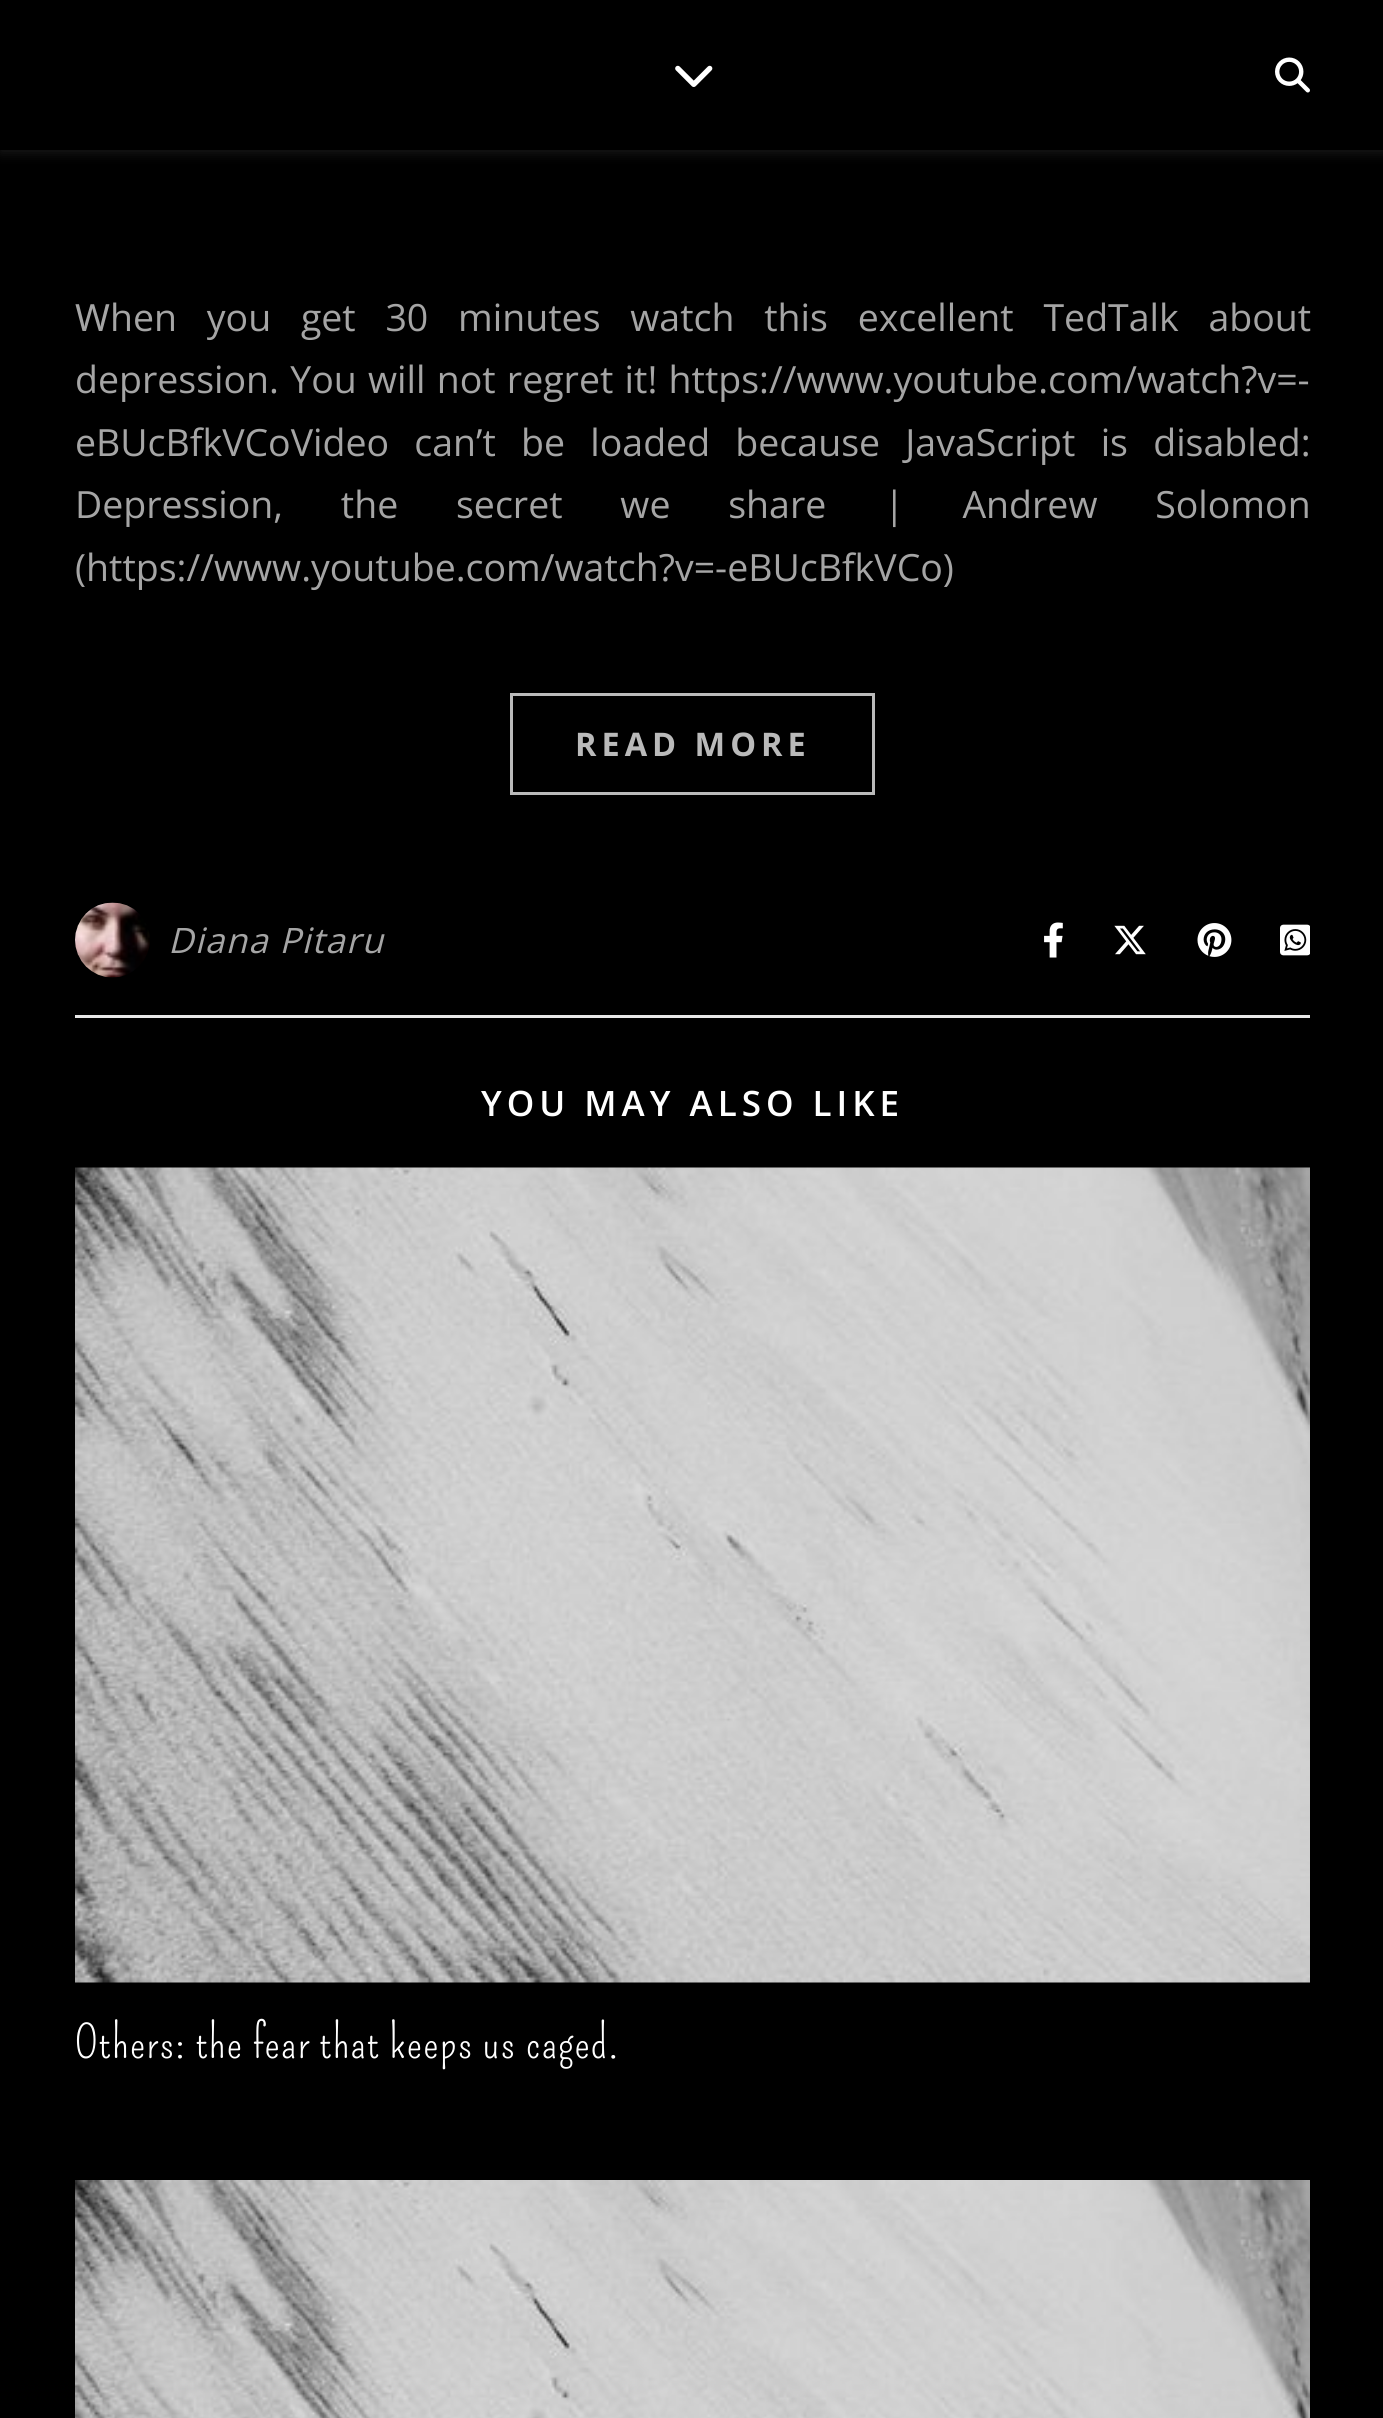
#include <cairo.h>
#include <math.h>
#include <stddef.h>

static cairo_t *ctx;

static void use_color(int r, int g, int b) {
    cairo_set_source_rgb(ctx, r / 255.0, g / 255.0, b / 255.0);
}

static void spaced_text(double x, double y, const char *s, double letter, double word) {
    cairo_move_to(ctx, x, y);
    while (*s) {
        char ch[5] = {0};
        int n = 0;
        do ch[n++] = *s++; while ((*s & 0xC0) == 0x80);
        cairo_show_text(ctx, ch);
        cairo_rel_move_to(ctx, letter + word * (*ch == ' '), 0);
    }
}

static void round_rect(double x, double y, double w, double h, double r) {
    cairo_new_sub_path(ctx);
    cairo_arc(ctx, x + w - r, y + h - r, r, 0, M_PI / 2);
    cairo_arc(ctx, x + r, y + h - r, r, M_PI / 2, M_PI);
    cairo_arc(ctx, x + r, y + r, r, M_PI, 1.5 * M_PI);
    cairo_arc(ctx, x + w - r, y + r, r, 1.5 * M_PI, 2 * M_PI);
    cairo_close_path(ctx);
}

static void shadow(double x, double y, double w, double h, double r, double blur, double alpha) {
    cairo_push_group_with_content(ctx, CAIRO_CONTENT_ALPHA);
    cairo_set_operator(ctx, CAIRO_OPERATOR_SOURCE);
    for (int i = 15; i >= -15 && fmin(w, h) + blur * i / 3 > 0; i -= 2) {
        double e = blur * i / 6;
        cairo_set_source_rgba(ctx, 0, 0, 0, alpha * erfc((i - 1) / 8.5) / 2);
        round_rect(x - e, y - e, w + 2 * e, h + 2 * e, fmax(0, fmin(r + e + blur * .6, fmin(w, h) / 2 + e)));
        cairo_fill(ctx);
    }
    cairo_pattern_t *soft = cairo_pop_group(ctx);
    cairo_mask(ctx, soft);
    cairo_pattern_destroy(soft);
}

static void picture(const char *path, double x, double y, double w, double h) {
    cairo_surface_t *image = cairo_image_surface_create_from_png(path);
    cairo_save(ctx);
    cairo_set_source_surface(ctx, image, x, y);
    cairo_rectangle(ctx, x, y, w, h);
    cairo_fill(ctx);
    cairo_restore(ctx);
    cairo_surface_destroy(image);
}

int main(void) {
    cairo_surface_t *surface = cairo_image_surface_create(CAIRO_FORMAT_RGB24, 1383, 2418);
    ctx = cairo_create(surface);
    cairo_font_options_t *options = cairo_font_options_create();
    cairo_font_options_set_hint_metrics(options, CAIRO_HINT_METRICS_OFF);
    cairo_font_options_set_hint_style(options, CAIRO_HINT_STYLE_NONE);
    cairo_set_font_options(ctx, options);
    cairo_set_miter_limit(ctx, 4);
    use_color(0, 0, 0);
    cairo_paint(ctx);
    use_color(255, 255, 255);
    shadow(0, 3, 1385, 150, 0, 6, 0.1);
    use_color(0, 0, 0);
    cairo_rectangle(ctx, 0, 0, 1383, 150);
    cairo_fill(ctx);
    picture("img1.png", 675, 65, 38, 22);
    picture("img2.png", 1275, 57, 35, 36);
    cairo_select_font_face(ctx, "Noto Sans", CAIRO_FONT_SLANT_NORMAL, CAIRO_FONT_WEIGHT_NORMAL);
    cairo_set_font_size(ctx, 37.5);
    use_color(165, 165, 165);
    cairo_move_to(ctx, 75, 331);
    cairo_show_text(ctx, "W");
    cairo_select_font_face(ctx, "Open Sans", CAIRO_FONT_SLANT_NORMAL, CAIRO_FONT_WEIGHT_NORMAL);
    spaced_text(110, 331, "hen you get 30 minutes watch this excellent TedTalk about", 0, 20);
    spaced_text(75, 393, "depression. You will not regret it! https://www.youtube.com/watch?v=-", 0, 1.5);
    spaced_text(75, 456, "eBUcBfkVCoVideo can’t be loaded because JavaScript is disabled:", 0, 15.5);
    spaced_text(75, 518, "Depression, the secret we share | Andrew Solomon", 0, 48);
    cairo_move_to(ctx, 75, 581);
    cairo_show_text(ctx, "(https://www.youtube.com/watch?v=-eBUcBfkVCo)");
    cairo_rectangle(ctx, 511.5, 694.5, 362, 99);
    use_color(186, 186, 186);
    cairo_set_line_width(ctx, 3);
    cairo_stroke(ctx);
    cairo_select_font_face(ctx, "Open Sans", CAIRO_FONT_SLANT_NORMAL, CAIRO_FONT_WEIGHT_BOLD);
    cairo_set_font_size(ctx, 32.5);
    spaced_text(575, 756, "READ MORE", 5, 0);
    use_color(232, 232, 232);
    cairo_rectangle(ctx, 75, 1015, 1235, 3);
    cairo_fill(ctx);
    picture("img3.png", 75, 902, 75, 76);
    cairo_select_font_face(ctx, "Open Sans", CAIRO_FONT_SLANT_ITALIC, CAIRO_FONT_WEIGHT_NORMAL);
    cairo_set_font_size(ctx, 35);
    use_color(165, 165, 165);
    spaced_text(168, 953, "Diana Pitaru", 1.25, 0);
    picture("img4.png", 1044, 922, 19, 36);
    picture("img5.png", 1114, 925, 32, 30);
    picture("img6.png", 1197, 923, 35, 34);
    picture("img7.png", 1280, 924, 30, 32);
    cairo_select_font_face(ctx, "Open Sans SemiBold", CAIRO_FONT_SLANT_NORMAL, CAIRO_FONT_WEIGHT_NORMAL);
    use_color(255, 255, 255);
    spaced_text(481, 1116, "YOU MAY ALSO LIKE", 5, 0);
    picture("img8.png", 75, 1167, 1235, 816);
    cairo_select_font_face(ctx, "Pompiere", CAIRO_FONT_SLANT_NORMAL, CAIRO_FONT_WEIGHT_NORMAL);
    cairo_set_font_size(ctx, 45);
    spaced_text(75, 2058, "Others: the fear that keeps us caged.", 1.25, 0);
    picture("img9.png", 75, 2180, 1235, 238);
    cairo_surface_write_to_png(surface, "result.png");
    cairo_font_options_destroy(options);
    cairo_destroy(ctx);
    cairo_surface_destroy(surface);
    return 0;
}
